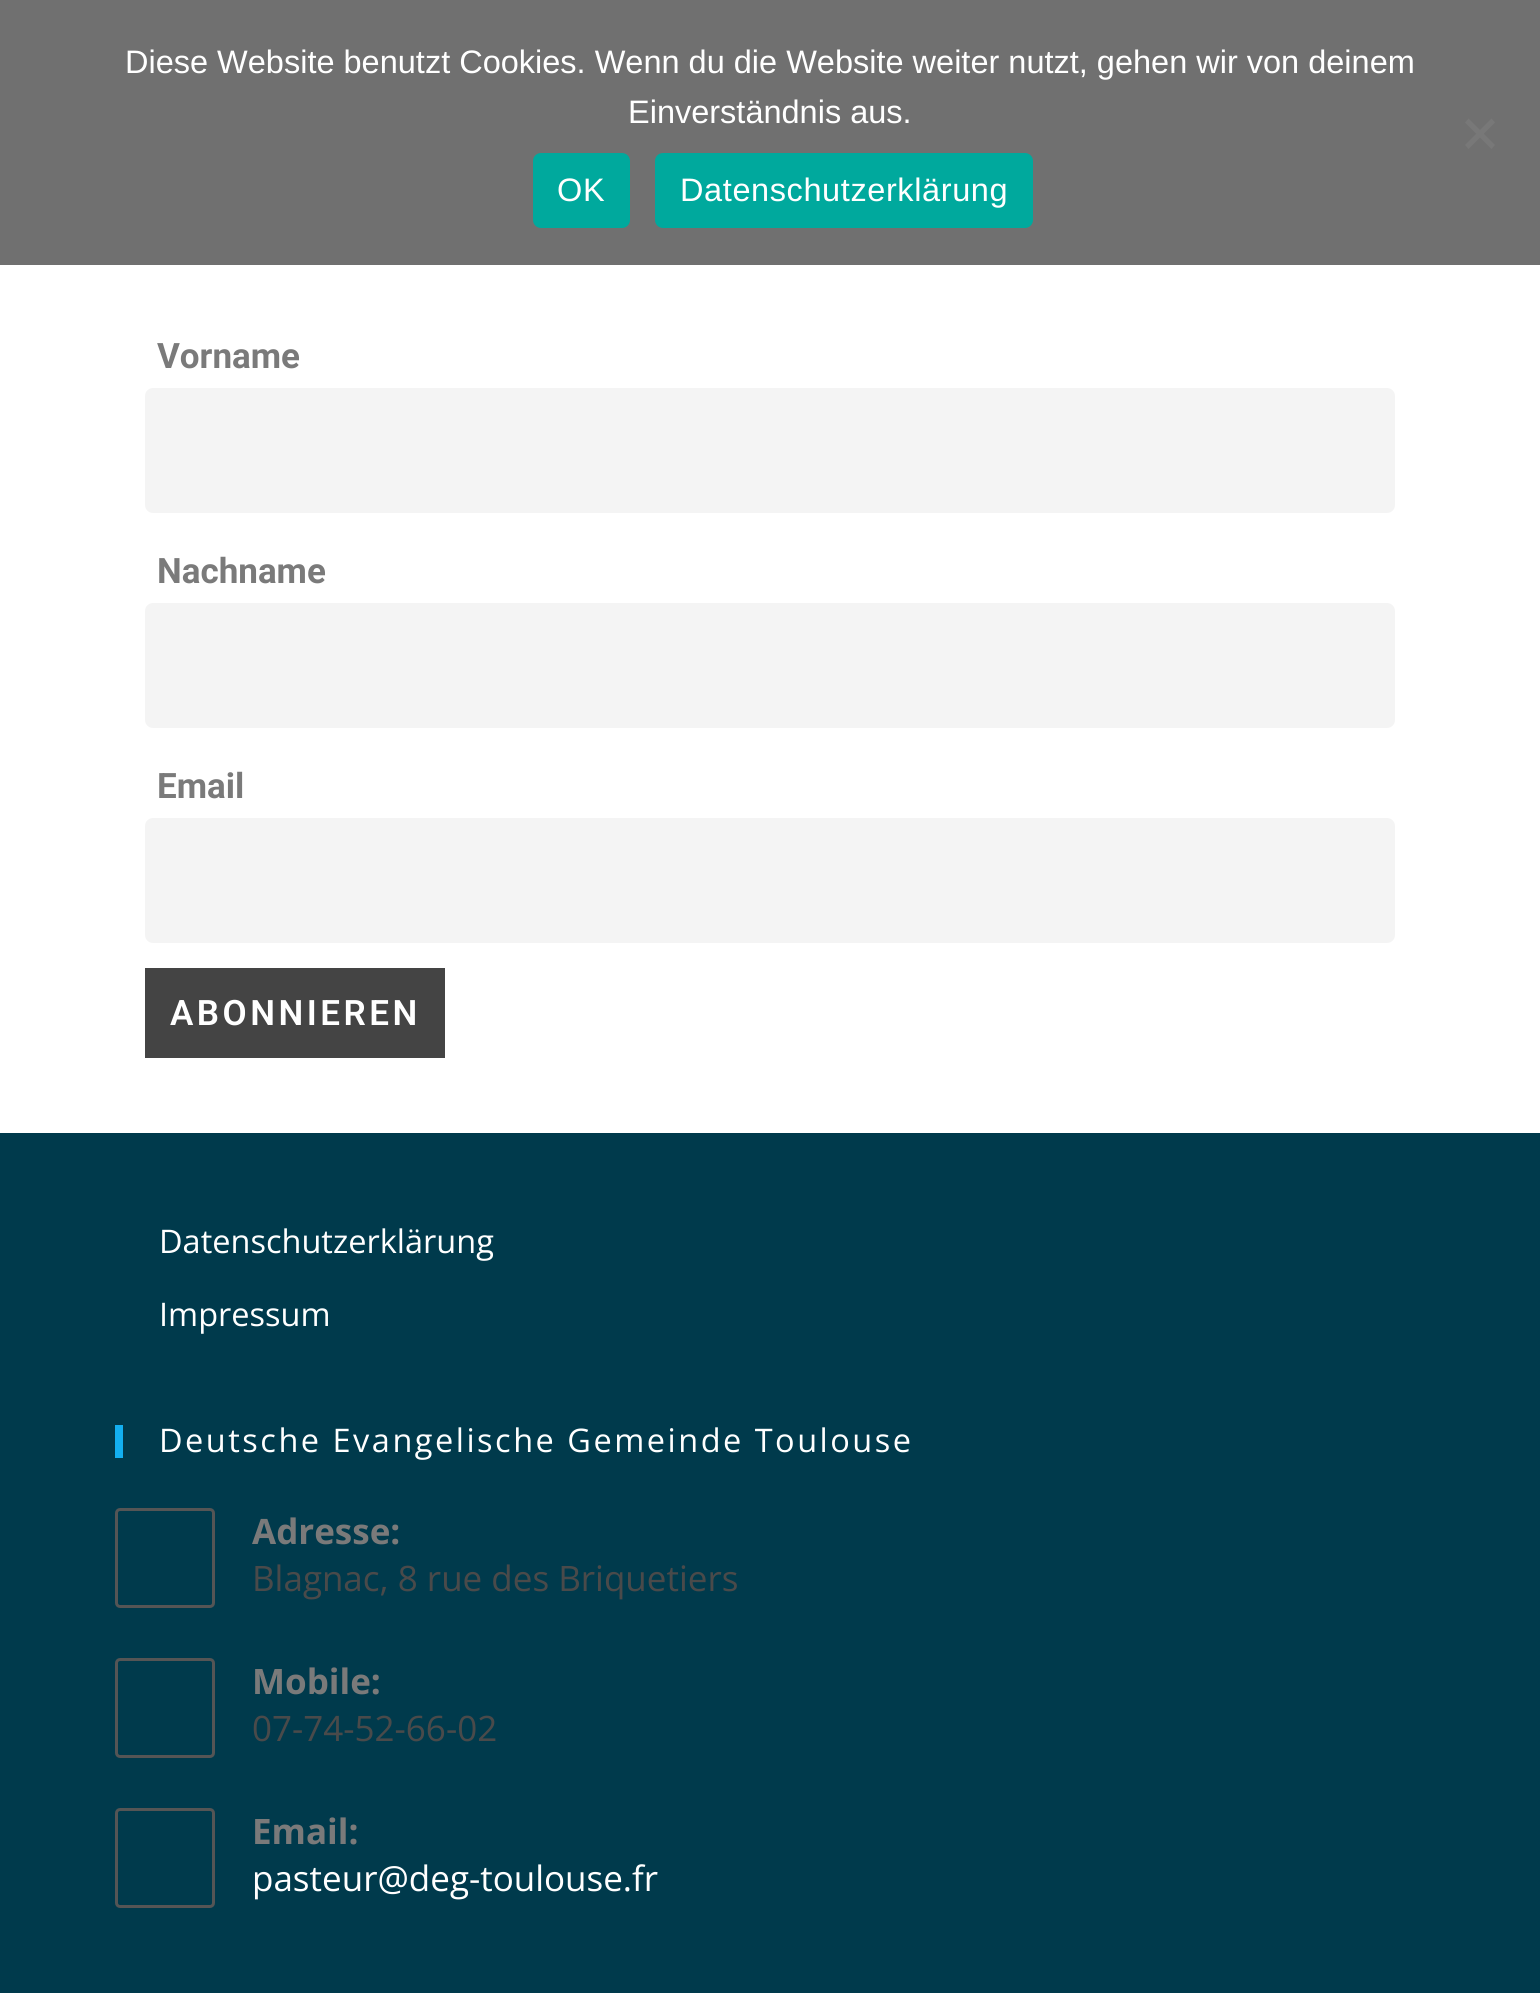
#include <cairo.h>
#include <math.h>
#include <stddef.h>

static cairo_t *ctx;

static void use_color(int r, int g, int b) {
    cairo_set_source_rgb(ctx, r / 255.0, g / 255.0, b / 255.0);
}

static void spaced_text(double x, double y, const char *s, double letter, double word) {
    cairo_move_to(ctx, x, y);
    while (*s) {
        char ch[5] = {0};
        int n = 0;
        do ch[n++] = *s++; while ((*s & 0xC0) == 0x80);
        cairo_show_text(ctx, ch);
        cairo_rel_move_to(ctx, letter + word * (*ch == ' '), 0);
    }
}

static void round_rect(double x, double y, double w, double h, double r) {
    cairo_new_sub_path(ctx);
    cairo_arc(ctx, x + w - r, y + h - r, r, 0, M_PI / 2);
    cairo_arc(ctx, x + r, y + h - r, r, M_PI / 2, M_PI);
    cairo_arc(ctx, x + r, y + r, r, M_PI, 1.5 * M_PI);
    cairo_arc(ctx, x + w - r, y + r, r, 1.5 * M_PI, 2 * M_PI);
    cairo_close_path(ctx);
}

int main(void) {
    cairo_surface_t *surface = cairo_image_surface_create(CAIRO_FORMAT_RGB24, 1540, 1993);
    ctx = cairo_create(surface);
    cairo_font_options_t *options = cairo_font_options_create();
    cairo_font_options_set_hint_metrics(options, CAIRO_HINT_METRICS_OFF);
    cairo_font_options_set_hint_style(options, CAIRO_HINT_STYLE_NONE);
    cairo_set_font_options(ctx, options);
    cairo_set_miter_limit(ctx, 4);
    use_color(255, 255, 255);
    cairo_paint(ctx);
    use_color(112, 112, 112);
    cairo_rectangle(ctx, 0, 0, 1540, 265);
    cairo_fill(ctx);
    cairo_select_font_face(ctx, "Liberation Sans", CAIRO_FONT_SLANT_NORMAL, CAIRO_FONT_WEIGHT_NORMAL);
    cairo_set_font_size(ctx, 32.5);
    use_color(255, 255, 255);
    cairo_move_to(ctx, 125, 73);
    cairo_show_text(ctx, "Diese Website benutzt Cookies. Wenn du die Website weiter nutzt, gehen wir von deinem");
    cairo_move_to(ctx, 628, 123);
    cairo_show_text(ctx, "Einverständnis aus.");
    use_color(120, 120, 120);
    cairo_new_path(ctx);
    cairo_move_to(ctx, 1491.5, 118.5);
    cairo_line_to(ctx, 1495, 122.5);
    cairo_line_to(ctx, 1468.5, 149);
    cairo_line_to(ctx, 1465, 145);
    cairo_close_path(ctx);
    cairo_fill(ctx);
    cairo_new_path(ctx);
    cairo_move_to(ctx, 1465, 122.5);
    cairo_line_to(ctx, 1468.5, 118.5);
    cairo_line_to(ctx, 1495, 145);
    cairo_line_to(ctx, 1491.5, 149);
    cairo_close_path(ctx);
    cairo_fill(ctx);
    use_color(0, 169, 157);
    round_rect(533, 153, 97, 75, 8);
    cairo_fill(ctx);
    use_color(255, 255, 255);
    spaced_text(557, 201, "OK", 0.6, 0);
    use_color(0, 169, 157);
    round_rect(655, 153, 378, 75, 8);
    cairo_fill(ctx);
    use_color(255, 255, 255);
    spaced_text(680, 201, "Datenschutzerklärung", 0.6, 0);
    cairo_select_font_face(ctx, "Roboto", CAIRO_FONT_SLANT_NORMAL, CAIRO_FONT_WEIGHT_BOLD);
    cairo_set_font_size(ctx, 35);
    use_color(122, 122, 122);
    cairo_move_to(ctx, 157, 368);
    cairo_show_text(ctx, "Vorname");
    use_color(244, 244, 244);
    round_rect(145, 388, 1250, 125, 8);
    cairo_fill(ctx);
    use_color(122, 122, 122);
    cairo_move_to(ctx, 157, 583);
    cairo_show_text(ctx, "Nachname");
    use_color(244, 244, 244);
    round_rect(145, 603, 1250, 125, 8);
    cairo_fill(ctx);
    use_color(122, 122, 122);
    cairo_move_to(ctx, 157, 798);
    cairo_show_text(ctx, "Email");
    use_color(244, 244, 244);
    round_rect(145, 818, 1250, 125, 8);
    cairo_fill(ctx);
    use_color(68, 68, 68);
    cairo_rectangle(ctx, 145, 968, 300, 90);
    cairo_fill(ctx);
    cairo_select_font_face(ctx, "Roboto SemiBold", CAIRO_FONT_SLANT_NORMAL, CAIRO_FONT_WEIGHT_NORMAL);
    use_color(255, 255, 255);
    spaced_text(170, 1025, "ABONNIEREN", 3.5, 0);
    use_color(0, 58, 76);
    cairo_rectangle(ctx, 0, 1133, 1540, 860);
    cairo_fill(ctx);
    cairo_select_font_face(ctx, "Open Sans", CAIRO_FONT_SLANT_NORMAL, CAIRO_FONT_WEIGHT_NORMAL);
    cairo_set_font_size(ctx, 32.5);
    use_color(255, 255, 255);
    cairo_move_to(ctx, 159, 1253);
    cairo_show_text(ctx, "Datenschutzerklärung");
    cairo_move_to(ctx, 159, 1326);
    cairo_show_text(ctx, "Impressum");
    use_color(19, 175, 240);
    cairo_rectangle(ctx, 115, 1425, 8, 33);
    cairo_fill(ctx);
    use_color(255, 255, 255);
    spaced_text(159, 1452, "Deutsche Evangelische Gemeinde Toulouse", 2.5, 0);
    round_rect(116.5, 1509.5, 97, 97, 3.5);
    use_color(85, 85, 85);
    cairo_set_line_width(ctx, 3);
    cairo_stroke(ctx);
    cairo_select_font_face(ctx, "Open Sans", CAIRO_FONT_SLANT_NORMAL, CAIRO_FONT_WEIGHT_BOLD);
    cairo_set_font_size(ctx, 35);
    use_color(122, 122, 122);
    cairo_move_to(ctx, 252, 1544);
    cairo_show_text(ctx, "Adresse:");
    cairo_select_font_face(ctx, "Open Sans", CAIRO_FONT_SLANT_NORMAL, CAIRO_FONT_WEIGHT_NORMAL);
    use_color(74, 74, 74);
    cairo_move_to(ctx, 252, 1591);
    cairo_show_text(ctx, "Blagnac, 8 rue des Briquetiers");
    round_rect(116.5, 1659.5, 97, 97, 3.5);
    use_color(85, 85, 85);
    cairo_stroke(ctx);
    cairo_select_font_face(ctx, "Open Sans", CAIRO_FONT_SLANT_NORMAL, CAIRO_FONT_WEIGHT_BOLD);
    use_color(122, 122, 122);
    cairo_move_to(ctx, 252, 1694);
    cairo_show_text(ctx, "Mobile:");
    cairo_select_font_face(ctx, "Open Sans", CAIRO_FONT_SLANT_NORMAL, CAIRO_FONT_WEIGHT_NORMAL);
    use_color(74, 74, 74);
    cairo_move_to(ctx, 252, 1741);
    cairo_show_text(ctx, "07-74-52-66-02");
    round_rect(116.5, 1809.5, 97, 97, 3.5);
    use_color(85, 85, 85);
    cairo_stroke(ctx);
    cairo_select_font_face(ctx, "Open Sans", CAIRO_FONT_SLANT_NORMAL, CAIRO_FONT_WEIGHT_BOLD);
    use_color(122, 122, 122);
    cairo_move_to(ctx, 252, 1844);
    cairo_show_text(ctx, "Email:");
    cairo_select_font_face(ctx, "Open Sans", CAIRO_FONT_SLANT_NORMAL, CAIRO_FONT_WEIGHT_NORMAL);
    use_color(255, 255, 255);
    cairo_move_to(ctx, 252, 1891);
    cairo_show_text(ctx, "pasteur@deg-toulouse.fr");
    cairo_surface_write_to_png(surface, "result.png");
    cairo_font_options_destroy(options);
    cairo_destroy(ctx);
    cairo_surface_destroy(surface);
    return 0;
}
